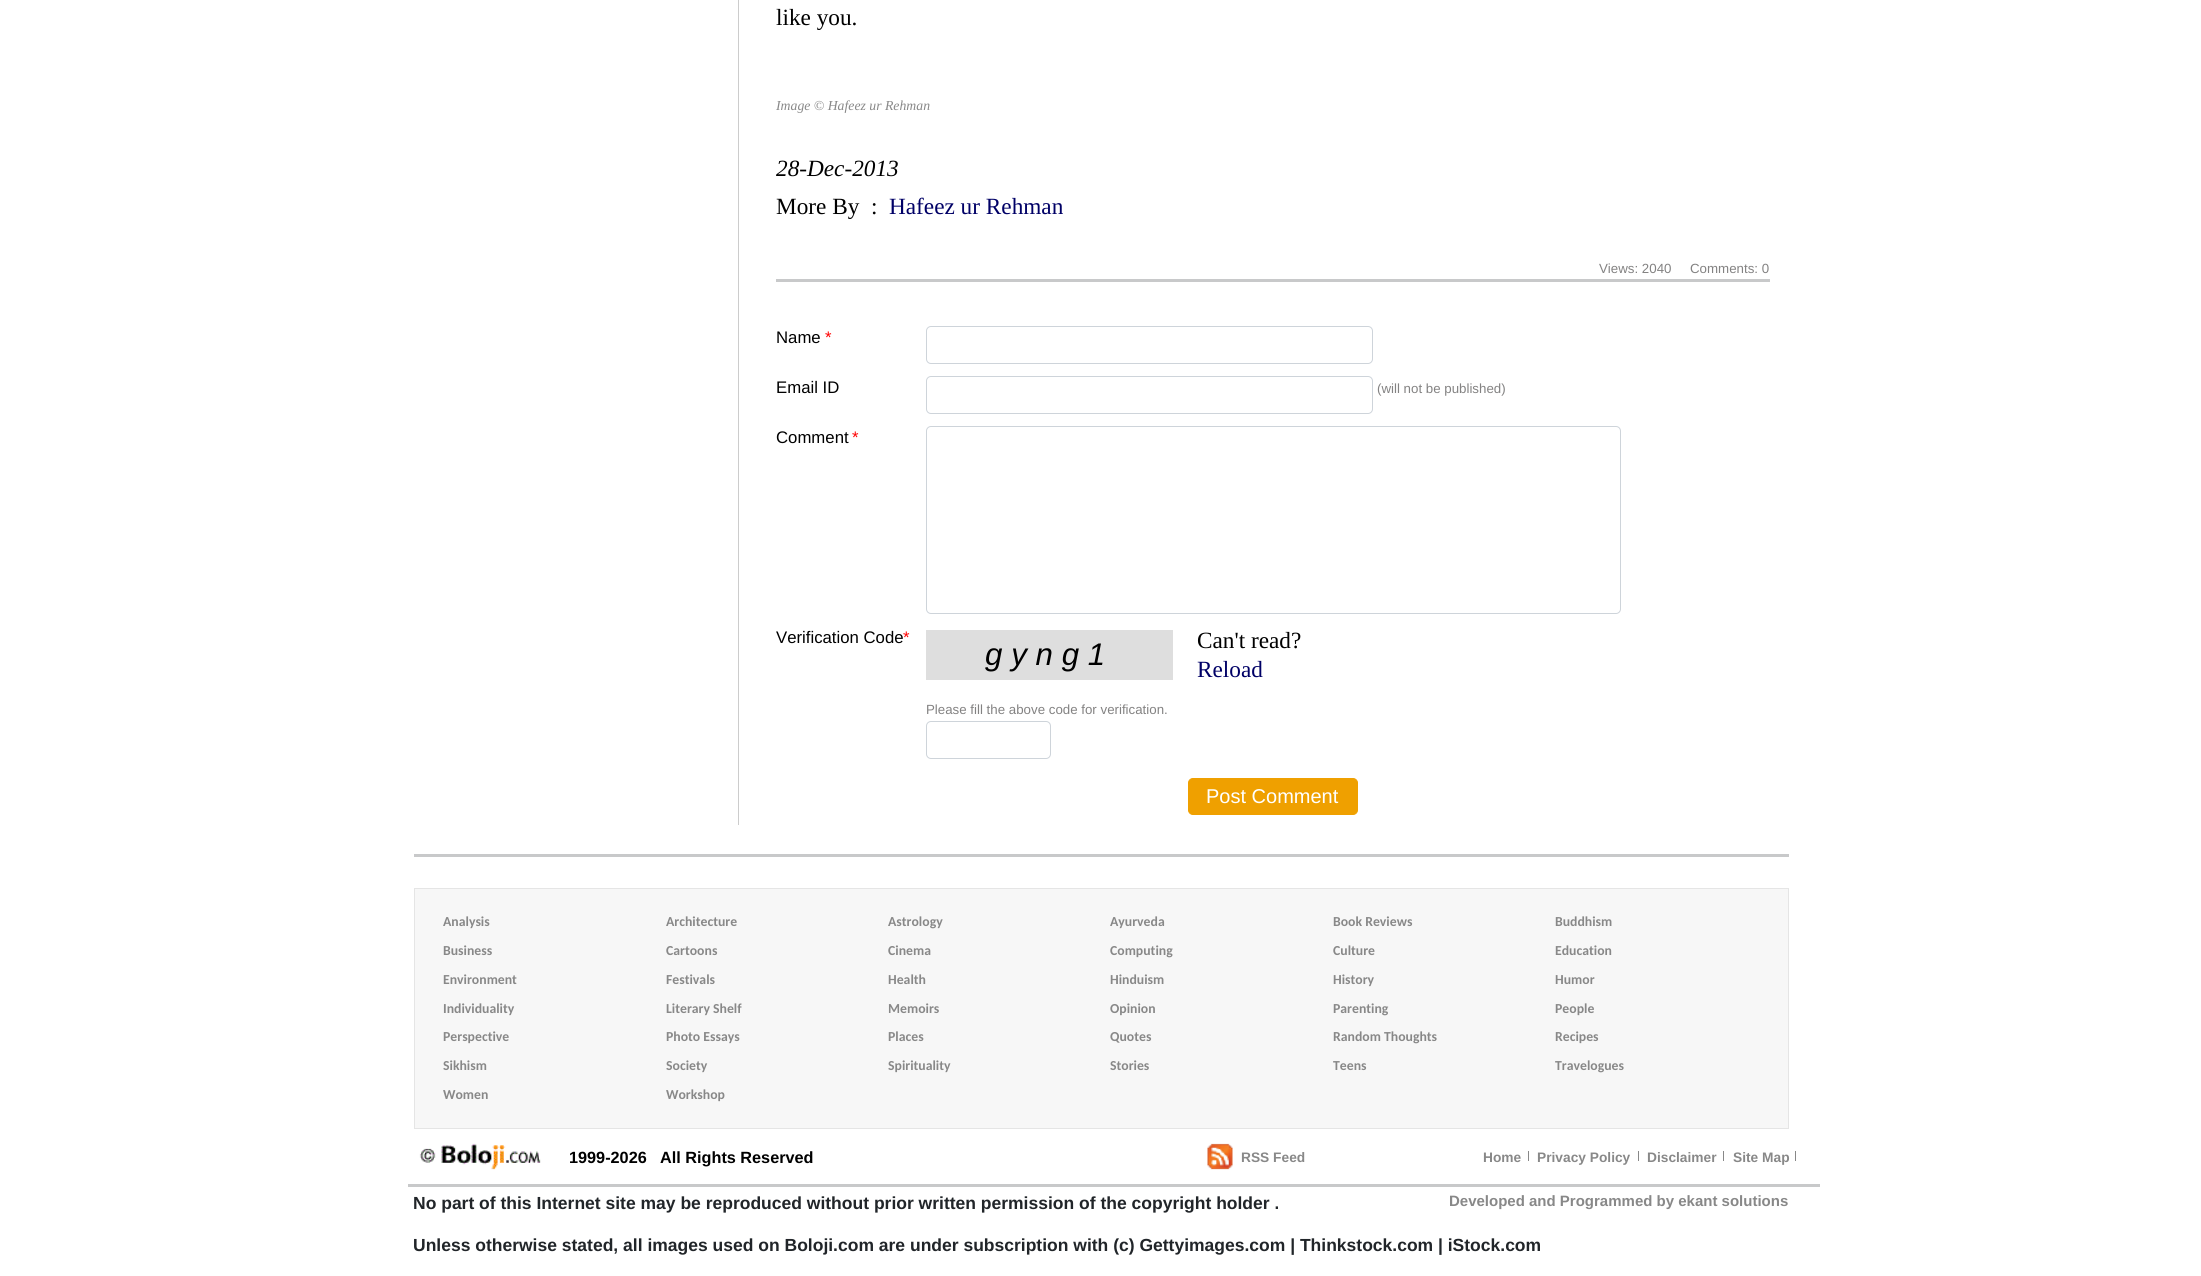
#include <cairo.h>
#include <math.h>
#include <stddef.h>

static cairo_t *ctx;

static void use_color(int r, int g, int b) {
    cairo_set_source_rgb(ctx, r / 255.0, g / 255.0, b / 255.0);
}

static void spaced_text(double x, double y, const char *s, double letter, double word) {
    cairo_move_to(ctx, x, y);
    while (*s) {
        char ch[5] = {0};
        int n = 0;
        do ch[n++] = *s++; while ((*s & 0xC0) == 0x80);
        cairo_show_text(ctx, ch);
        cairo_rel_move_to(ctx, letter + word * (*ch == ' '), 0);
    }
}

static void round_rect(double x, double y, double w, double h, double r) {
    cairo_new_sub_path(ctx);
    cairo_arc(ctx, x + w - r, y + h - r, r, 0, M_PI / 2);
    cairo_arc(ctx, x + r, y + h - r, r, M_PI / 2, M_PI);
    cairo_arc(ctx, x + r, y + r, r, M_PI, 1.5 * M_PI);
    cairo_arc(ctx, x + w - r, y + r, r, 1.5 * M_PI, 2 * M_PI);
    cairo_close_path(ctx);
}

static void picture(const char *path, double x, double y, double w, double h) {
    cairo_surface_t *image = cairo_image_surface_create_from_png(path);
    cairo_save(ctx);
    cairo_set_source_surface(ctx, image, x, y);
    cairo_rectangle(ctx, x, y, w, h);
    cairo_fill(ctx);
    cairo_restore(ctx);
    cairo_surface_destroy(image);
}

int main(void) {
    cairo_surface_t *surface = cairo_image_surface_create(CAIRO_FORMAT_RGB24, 2201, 1276);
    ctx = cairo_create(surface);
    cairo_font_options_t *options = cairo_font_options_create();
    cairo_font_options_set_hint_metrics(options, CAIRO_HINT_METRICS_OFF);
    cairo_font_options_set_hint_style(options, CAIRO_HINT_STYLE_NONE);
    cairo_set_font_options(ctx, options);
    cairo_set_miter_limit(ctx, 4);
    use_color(255, 255, 255);
    cairo_paint(ctx);
    use_color(204, 204, 204);
    cairo_rectangle(ctx, 738, 0, 1, 825);
    cairo_fill(ctx);
    cairo_select_font_face(ctx, "Liberation Serif", CAIRO_FONT_SLANT_NORMAL, CAIRO_FONT_WEIGHT_NORMAL);
    cairo_set_font_size(ctx, 23.25);
    use_color(0, 0, 0);
    cairo_move_to(ctx, 776, 25);
    cairo_show_text(ctx, "like you.");
    cairo_select_font_face(ctx, "Liberation Serif", CAIRO_FONT_SLANT_ITALIC, CAIRO_FONT_WEIGHT_NORMAL);
    cairo_set_font_size(ctx, 13.75);
    use_color(136, 136, 136);
    cairo_move_to(ctx, 776, 110);
    cairo_show_text(ctx, "Image © Hafeez ur Rehman");
    cairo_set_font_size(ctx, 23.25);
    use_color(0, 0, 0);
    cairo_move_to(ctx, 776, 176);
    cairo_show_text(ctx, "28-Dec-2013");
    cairo_select_font_face(ctx, "Liberation Serif", CAIRO_FONT_SLANT_NORMAL, CAIRO_FONT_WEIGHT_NORMAL);
    cairo_move_to(ctx, 776, 214);
    cairo_show_text(ctx, "More By");
    cairo_move_to(ctx, 871, 214);
    cairo_show_text(ctx, ":");
    use_color(0, 0, 102);
    cairo_move_to(ctx, 889, 214);
    cairo_show_text(ctx, "Hafeez ur Rehman");
    cairo_select_font_face(ctx, "Liberation Sans", CAIRO_FONT_SLANT_NORMAL, CAIRO_FONT_WEIGHT_NORMAL);
    cairo_set_font_size(ctx, 13.3);
    use_color(131, 130, 130);
    cairo_move_to(ctx, 1599, 273);
    cairo_show_text(ctx, "Views: 2040");
    cairo_move_to(ctx, 1690, 273);
    cairo_show_text(ctx, "Comments: 0");
    use_color(200, 201, 202);
    cairo_rectangle(ctx, 776, 279, 994, 3);
    cairo_fill(ctx);
    cairo_set_font_size(ctx, 16.75);
    use_color(0, 0, 0);
    cairo_move_to(ctx, 776, 343);
    cairo_show_text(ctx, "Name");
    use_color(255, 0, 0);
    cairo_move_to(ctx, 825, 343);
    cairo_show_text(ctx, "*");
    round_rect(926.5, 326.5, 446, 37, 4.5);
    use_color(206, 212, 218);
    cairo_set_line_width(ctx, 1);
    cairo_stroke(ctx);
    use_color(0, 0, 0);
    cairo_move_to(ctx, 776, 393);
    cairo_show_text(ctx, "Email ID");
    round_rect(926.5, 376.5, 446, 37, 4.5);
    use_color(206, 212, 218);
    cairo_stroke(ctx);
    cairo_set_font_size(ctx, 13.3);
    use_color(131, 130, 130);
    cairo_move_to(ctx, 1377, 393);
    cairo_show_text(ctx, "(will not be published)");
    cairo_set_font_size(ctx, 16.75);
    use_color(0, 0, 0);
    cairo_move_to(ctx, 776, 443);
    cairo_show_text(ctx, "Comment");
    use_color(255, 0, 0);
    cairo_move_to(ctx, 852, 443);
    cairo_show_text(ctx, "*");
    round_rect(926.5, 426.5, 694, 187, 4.5);
    use_color(206, 212, 218);
    cairo_stroke(ctx);
    use_color(0, 0, 0);
    cairo_move_to(ctx, 776, 643);
    cairo_show_text(ctx, "Verification Code");
    use_color(255, 0, 0);
    cairo_move_to(ctx, 903, 643);
    cairo_show_text(ctx, "*");
    use_color(222, 222, 222);
    cairo_rectangle(ctx, 926, 630, 247, 50);
    cairo_fill(ctx);
    cairo_select_font_face(ctx, "Liberation Sans", CAIRO_FONT_SLANT_ITALIC, CAIRO_FONT_WEIGHT_NORMAL);
    cairo_set_font_size(ctx, 31.25);
    use_color(0, 0, 0);
    spaced_text(985, 665, "gyng1", 8.75, 0);
    cairo_select_font_face(ctx, "Liberation Serif", CAIRO_FONT_SLANT_NORMAL, CAIRO_FONT_WEIGHT_NORMAL);
    cairo_set_font_size(ctx, 23.25);
    cairo_move_to(ctx, 1197, 648);
    cairo_show_text(ctx, "Can't read?");
    use_color(0, 0, 102);
    cairo_move_to(ctx, 1197, 677);
    cairo_show_text(ctx, "Reload");
    cairo_select_font_face(ctx, "Liberation Sans", CAIRO_FONT_SLANT_NORMAL, CAIRO_FONT_WEIGHT_NORMAL);
    cairo_set_font_size(ctx, 13.3);
    use_color(131, 130, 130);
    cairo_move_to(ctx, 926, 714);
    cairo_show_text(ctx, "Please fill the above code for verification.");
    round_rect(926.5, 721.5, 124, 37, 4.5);
    use_color(206, 212, 218);
    cairo_stroke(ctx);
    use_color(239, 160, 0);
    round_rect(1188.5, 778.5, 169, 36, 4.5);
    cairo_fill_preserve(ctx);
    cairo_stroke(ctx);
    cairo_set_font_size(ctx, 20);
    use_color(255, 255, 255);
    cairo_move_to(ctx, 1206, 803);
    cairo_show_text(ctx, "Post Comment");
    use_color(200, 201, 202);
    cairo_rectangle(ctx, 414, 854, 1375, 3);
    cairo_fill(ctx);
    use_color(247, 247, 247);
    cairo_rectangle(ctx, 414.5, 888.5, 1374, 240);
    cairo_fill_preserve(ctx);
    use_color(229, 229, 229);
    cairo_stroke(ctx);
    cairo_select_font_face(ctx, "Carlito", CAIRO_FONT_SLANT_NORMAL, CAIRO_FONT_WEIGHT_BOLD);
    cairo_set_font_size(ctx, 13.75);
    use_color(136, 136, 136);
    cairo_move_to(ctx, 443, 926);
    cairo_show_text(ctx, "Analysis");
    cairo_move_to(ctx, 666, 926);
    cairo_show_text(ctx, "Architecture");
    cairo_move_to(ctx, 888, 926);
    cairo_show_text(ctx, "Astrology");
    cairo_move_to(ctx, 1110, 926);
    cairo_show_text(ctx, "Ayurveda");
    cairo_move_to(ctx, 1333, 926);
    cairo_show_text(ctx, "Book Reviews");
    cairo_move_to(ctx, 1555, 926);
    cairo_show_text(ctx, "Buddhism");
    cairo_move_to(ctx, 443, 955);
    cairo_show_text(ctx, "Business");
    cairo_move_to(ctx, 666, 955);
    cairo_show_text(ctx, "Cartoons");
    cairo_move_to(ctx, 888, 955);
    cairo_show_text(ctx, "Cinema");
    cairo_move_to(ctx, 1110, 955);
    cairo_show_text(ctx, "Computing");
    cairo_move_to(ctx, 1333, 955);
    cairo_show_text(ctx, "Culture");
    cairo_move_to(ctx, 1555, 955);
    cairo_show_text(ctx, "Education");
    cairo_move_to(ctx, 443, 984);
    cairo_show_text(ctx, "Environment");
    cairo_move_to(ctx, 666, 984);
    cairo_show_text(ctx, "Festivals");
    cairo_move_to(ctx, 888, 984);
    cairo_show_text(ctx, "Health");
    cairo_move_to(ctx, 1110, 984);
    cairo_show_text(ctx, "Hinduism");
    cairo_move_to(ctx, 1333, 984);
    cairo_show_text(ctx, "History");
    cairo_move_to(ctx, 1555, 984);
    cairo_show_text(ctx, "Humor");
    cairo_move_to(ctx, 443, 1013);
    cairo_show_text(ctx, "Individuality");
    cairo_move_to(ctx, 666, 1013);
    cairo_show_text(ctx, "Literary Shelf");
    cairo_move_to(ctx, 888, 1013);
    cairo_show_text(ctx, "Memoirs");
    cairo_move_to(ctx, 1110, 1013);
    cairo_show_text(ctx, "Opinion");
    cairo_move_to(ctx, 1333, 1013);
    cairo_show_text(ctx, "Parenting");
    cairo_move_to(ctx, 1555, 1013);
    cairo_show_text(ctx, "People");
    cairo_move_to(ctx, 443, 1041);
    cairo_show_text(ctx, "Perspective");
    cairo_move_to(ctx, 666, 1041);
    cairo_show_text(ctx, "Photo Essays");
    cairo_move_to(ctx, 888, 1041);
    cairo_show_text(ctx, "Places");
    cairo_move_to(ctx, 1110, 1041);
    cairo_show_text(ctx, "Quotes");
    cairo_move_to(ctx, 1333, 1041);
    cairo_show_text(ctx, "Random Thoughts");
    cairo_move_to(ctx, 1555, 1041);
    cairo_show_text(ctx, "Recipes");
    cairo_move_to(ctx, 443, 1070);
    cairo_show_text(ctx, "Sikhism");
    cairo_move_to(ctx, 666, 1070);
    cairo_show_text(ctx, "Society");
    cairo_move_to(ctx, 888, 1070);
    cairo_show_text(ctx, "Spirituality");
    cairo_move_to(ctx, 1110, 1070);
    cairo_show_text(ctx, "Stories");
    cairo_move_to(ctx, 1333, 1070);
    cairo_show_text(ctx, "Teens");
    cairo_move_to(ctx, 1555, 1070);
    cairo_show_text(ctx, "Travelogues");
    cairo_move_to(ctx, 443, 1099);
    cairo_show_text(ctx, "Women");
    cairo_move_to(ctx, 666, 1099);
    cairo_show_text(ctx, "Workshop");
    picture("img1.png", 419, 1143, 122, 27);
    cairo_select_font_face(ctx, "Liberation Sans", CAIRO_FONT_SLANT_NORMAL, CAIRO_FONT_WEIGHT_BOLD);
    cairo_set_font_size(ctx, 16.25);
    use_color(0, 0, 0);
    cairo_move_to(ctx, 569, 1163);
    cairo_show_text(ctx, "1999-2026");
    cairo_move_to(ctx, 660, 1163);
    cairo_show_text(ctx, "All Rights Reserved");
    picture("img2.png", 1207, 1143, 26, 27);
    cairo_set_font_size(ctx, 13.75);
    use_color(136, 136, 136);
    cairo_move_to(ctx, 1241, 1162);
    cairo_show_text(ctx, "RSS Feed");
    cairo_move_to(ctx, 1483, 1162);
    cairo_show_text(ctx, "Home");
    cairo_rectangle(ctx, 1528, 1151, 1, 10);
    cairo_fill(ctx);
    cairo_move_to(ctx, 1537, 1162);
    cairo_show_text(ctx, "Privacy Policy");
    cairo_rectangle(ctx, 1638, 1151, 1, 10);
    cairo_fill(ctx);
    cairo_move_to(ctx, 1647, 1162);
    cairo_show_text(ctx, "Disclaimer");
    cairo_rectangle(ctx, 1723, 1151, 1, 10);
    cairo_fill(ctx);
    cairo_move_to(ctx, 1733, 1162);
    cairo_show_text(ctx, "Site Map");
    cairo_rectangle(ctx, 1795, 1151, 1, 10);
    cairo_fill(ctx);
    use_color(200, 201, 202);
    cairo_rectangle(ctx, 408, 1184, 1412, 3);
    cairo_fill(ctx);
    cairo_set_font_size(ctx, 17.5);
    use_color(33, 37, 41);
    cairo_move_to(ctx, 413, 1209);
    cairo_show_text(ctx, "No part of this Internet site may be reproduced without prior written permission of the copyright holder .");
    cairo_set_font_size(ctx, 15);
    use_color(136, 136, 136);
    cairo_move_to(ctx, 1449, 1206);
    cairo_show_text(ctx, "Developed and Programmed by ekant solutions");
    cairo_set_font_size(ctx, 17.5);
    use_color(33, 37, 41);
    cairo_move_to(ctx, 413, 1251);
    cairo_show_text(ctx, "Unless otherwise stated, all images used on Boloji.com are under subscription with (c) Gettyimages.com | Thinkstock.com | iStock.com");
    cairo_surface_write_to_png(surface, "result.png");
    cairo_font_options_destroy(options);
    cairo_destroy(ctx);
    cairo_surface_destroy(surface);
    return 0;
}
